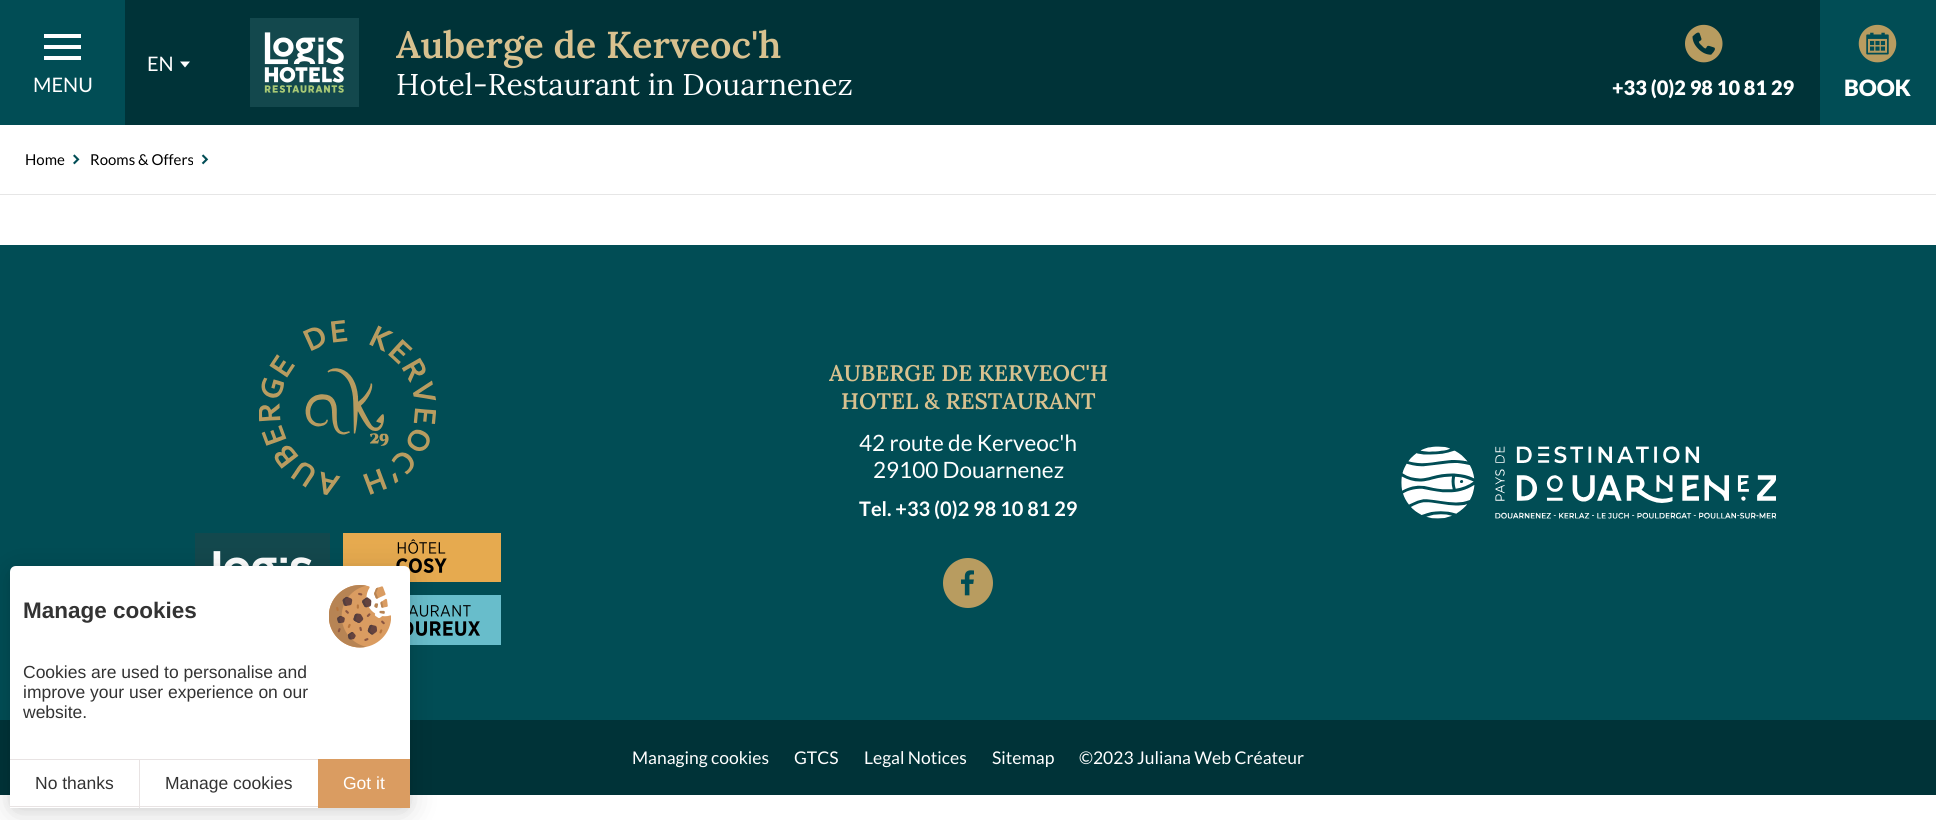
#include <cairo.h>
#include <math.h>
#include <stddef.h>

static cairo_t *ctx;

static void use_color(int r, int g, int b) {
    cairo_set_source_rgb(ctx, r / 255.0, g / 255.0, b / 255.0);
}

static void round_rect(double x, double y, double w, double h, double r) {
    cairo_new_sub_path(ctx);
    cairo_arc(ctx, x + w - r, y + h - r, r, 0, M_PI / 2);
    cairo_arc(ctx, x + r, y + h - r, r, M_PI / 2, M_PI);
    cairo_arc(ctx, x + r, y + r, r, M_PI, 1.5 * M_PI);
    cairo_arc(ctx, x + w - r, y + r, r, 1.5 * M_PI, 2 * M_PI);
    cairo_close_path(ctx);
}

static void shadow(double x, double y, double w, double h, double r, double blur, double alpha) {
    cairo_push_group_with_content(ctx, CAIRO_CONTENT_ALPHA);
    cairo_set_operator(ctx, CAIRO_OPERATOR_SOURCE);
    for (int i = 15; i >= -15 && fmin(w, h) + blur * i / 3 > 0; i -= 2) {
        double e = blur * i / 6;
        cairo_set_source_rgba(ctx, 0, 0, 0, alpha * erfc((i - 1) / 8.5) / 2);
        round_rect(x - e, y - e, w + 2 * e, h + 2 * e, fmax(0, fmin(r + e + blur * .6, fmin(w, h) / 2 + e)));
        cairo_fill(ctx);
    }
    cairo_pattern_t *soft = cairo_pop_group(ctx);
    cairo_mask(ctx, soft);
    cairo_pattern_destroy(soft);
}

static void picture(const char *path, double x, double y, double w, double h) {
    cairo_surface_t *image = cairo_image_surface_create_from_png(path);
    cairo_save(ctx);
    cairo_set_source_surface(ctx, image, x, y);
    cairo_rectangle(ctx, x, y, w, h);
    cairo_fill(ctx);
    cairo_restore(ctx);
    cairo_surface_destroy(image);
}

int main(void) {
    cairo_surface_t *surface = cairo_image_surface_create(CAIRO_FORMAT_RGB24, 1936, 820);
    ctx = cairo_create(surface);
    cairo_font_options_t *options = cairo_font_options_create();
    cairo_font_options_set_hint_metrics(options, CAIRO_HINT_METRICS_OFF);
    cairo_font_options_set_hint_style(options, CAIRO_HINT_STYLE_NONE);
    cairo_set_font_options(ctx, options);
    cairo_set_miter_limit(ctx, 4);
    use_color(255, 255, 255);
    cairo_paint(ctx);
    use_color(0, 51, 56);
    cairo_rectangle(ctx, 125, 0, 1695, 125);
    cairo_fill(ctx);
    cairo_select_font_face(ctx, "Lato", CAIRO_FONT_SLANT_NORMAL, CAIRO_FONT_WEIGHT_NORMAL);
    cairo_set_font_size(ctx, 20);
    use_color(255, 255, 255);
    cairo_move_to(ctx, 147, 71);
    cairo_show_text(ctx, "EN");
    cairo_new_path(ctx);
    cairo_move_to(ctx, 185, 67.5);
    cairo_line_to(ctx, 180, 61.5);
    cairo_line_to(ctx, 190, 61.5);
    cairo_close_path(ctx);
    cairo_fill(ctx);
    use_color(1, 77, 85);
    cairo_rectangle(ctx, 0, 0, 125, 125);
    cairo_fill(ctx);
    use_color(255, 255, 255);
    cairo_rectangle(ctx, 44, 34, 37, 4);
    cairo_fill(ctx);
    cairo_rectangle(ctx, 44, 45, 37, 4);
    cairo_fill(ctx);
    cairo_rectangle(ctx, 44, 56, 37, 4);
    cairo_fill(ctx);
    cairo_move_to(ctx, 33, 92);
    cairo_show_text(ctx, "MENU");
    picture("img1.png", 250, 18, 109, 89);
    cairo_select_font_face(ctx, "Lora SemiBold", CAIRO_FONT_SLANT_NORMAL, CAIRO_FONT_WEIGHT_NORMAL);
    cairo_set_font_size(ctx, 37.5);
    use_color(216, 193, 143);
    cairo_move_to(ctx, 396, 58);
    cairo_show_text(ctx, "Auberge de Kerveoc'h");
    cairo_select_font_face(ctx, "Lora", CAIRO_FONT_SLANT_NORMAL, CAIRO_FONT_WEIGHT_NORMAL);
    cairo_set_font_size(ctx, 30);
    use_color(255, 255, 255);
    cairo_move_to(ctx, 396, 95);
    cairo_show_text(ctx, "Hotel-Restaurant in Douarnenez");
    picture("img2.png", 1685, 24, 38, 39);
    cairo_select_font_face(ctx, "Lato Black", CAIRO_FONT_SLANT_NORMAL, CAIRO_FONT_WEIGHT_NORMAL);
    cairo_set_font_size(ctx, 20);
    cairo_move_to(ctx, 1612, 95);
    cairo_show_text(ctx, "+33 (0)2 98 10 81 29");
    use_color(1, 77, 85);
    cairo_rectangle(ctx, 1820, 0, 116, 125);
    cairo_fill(ctx);
    picture("img3.png", 1858, 24, 39, 39);
    cairo_set_font_size(ctx, 22.5);
    use_color(255, 255, 255);
    cairo_move_to(ctx, 1844, 96);
    cairo_show_text(ctx, "BOOK");
    use_color(230, 230, 230);
    cairo_rectangle(ctx, 0, 194, 1936, 1);
    cairo_fill(ctx);
    cairo_select_font_face(ctx, "Lato", CAIRO_FONT_SLANT_NORMAL, CAIRO_FONT_WEIGHT_NORMAL);
    cairo_set_font_size(ctx, 15);
    use_color(0, 0, 0);
    cairo_move_to(ctx, 25, 165);
    cairo_show_text(ctx, "Home");
    picture("img4.png", 73, 154, 7, 11);
    cairo_move_to(ctx, 90, 165);
    cairo_show_text(ctx, "Rooms & Offers");
    picture("img5.png", 201, 154, 8, 11);
    use_color(1, 77, 85);
    cairo_rectangle(ctx, 0, 245, 1936, 475);
    cairo_fill(ctx);
    picture("img6.png", 259, 320, 177, 175);
    picture("img7.png", 195, 533, 135, 33);
    picture("img8.png", 343, 533, 158, 49);
    picture("img9.png", 410, 595, 91, 50);
    cairo_select_font_face(ctx, "Lora SemiBold", CAIRO_FONT_SLANT_NORMAL, CAIRO_FONT_WEIGHT_NORMAL);
    cairo_set_font_size(ctx, 22.5);
    use_color(216, 193, 143);
    cairo_move_to(ctx, 829, 381);
    cairo_show_text(ctx, "AUBERGE DE KERVEOC'H");
    cairo_move_to(ctx, 841, 409);
    cairo_show_text(ctx, "HOTEL & RESTAURANT");
    cairo_select_font_face(ctx, "Lato", CAIRO_FONT_SLANT_NORMAL, CAIRO_FONT_WEIGHT_NORMAL);
    use_color(255, 255, 255);
    cairo_move_to(ctx, 859, 451);
    cairo_show_text(ctx, "42 route de Kerveoc'h");
    cairo_move_to(ctx, 873, 478);
    cairo_show_text(ctx, "29100 Douarnenez");
    cairo_select_font_face(ctx, "Lato", CAIRO_FONT_SLANT_NORMAL, CAIRO_FONT_WEIGHT_BOLD);
    cairo_set_font_size(ctx, 20);
    cairo_move_to(ctx, 859, 516);
    cairo_show_text(ctx, "Tel. +33 (0)2 98 10 81 29");
    use_color(184, 156, 96);
    cairo_new_path(ctx);
    cairo_arc(ctx, 968, 583, 25, 0, 2 * M_PI);
    cairo_fill(ctx);
    picture("img10.png", 961, 570, 13, 26);
    picture("img11.png", 1401, 446, 375, 73);
    use_color(0, 51, 56);
    cairo_rectangle(ctx, 0, 720, 1936, 75);
    cairo_fill(ctx);
    use_color(0, 0, 0);
    shadow(10, 569, 400, 241, 6, 4, 0.05);
    shadow(10, 571, 400, 242, 6, 15, 0.15);
    use_color(255, 255, 255);
    cairo_new_path(ctx);
    cairo_move_to(ctx, 16, 566);
    cairo_line_to(ctx, 404, 566);
    cairo_curve_to(ctx, 407.5, 566, 410, 568.5, 410, 572);
    cairo_line_to(ctx, 410, 808);
    cairo_line_to(ctx, 10, 808);
    cairo_line_to(ctx, 10, 572);
    cairo_curve_to(ctx, 10, 568.5, 12.5, 566, 16, 566);
    cairo_close_path(ctx);
    cairo_fill(ctx);
    picture("img12.png", 329, 585, 62, 63);
    cairo_select_font_face(ctx, "Liberation Sans", CAIRO_FONT_SLANT_NORMAL, CAIRO_FONT_WEIGHT_BOLD);
    cairo_set_font_size(ctx, 22.5);
    use_color(51, 51, 51);
    cairo_move_to(ctx, 23, 618);
    cairo_show_text(ctx, "Manage cookies");
    cairo_select_font_face(ctx, "Liberation Sans", CAIRO_FONT_SLANT_NORMAL, CAIRO_FONT_WEIGHT_NORMAL);
    cairo_set_font_size(ctx, 17.5);
    cairo_move_to(ctx, 23, 678);
    cairo_show_text(ctx, "Cookies are used to personalise and");
    cairo_move_to(ctx, 23, 698);
    cairo_show_text(ctx, "improve your user experience on our");
    cairo_move_to(ctx, 23, 718);
    cairo_show_text(ctx, "website.");
    use_color(232, 227, 227);
    cairo_rectangle(ctx, 10, 759, 308, 1);
    cairo_fill(ctx);
    cairo_rectangle(ctx, 10, 806, 308, 1);
    cairo_fill(ctx);
    use_color(51, 51, 51);
    cairo_move_to(ctx, 35, 789);
    cairo_show_text(ctx, "No thanks");
    use_color(232, 227, 227);
    cairo_rectangle(ctx, 139, 759, 1, 49);
    cairo_fill(ctx);
    use_color(51, 51, 51);
    cairo_move_to(ctx, 165, 789);
    cairo_show_text(ctx, "Manage cookies");
    use_color(218, 156, 97);
    cairo_rectangle(ctx, 318, 759, 92, 49);
    cairo_fill(ctx);
    use_color(255, 255, 255);
    cairo_move_to(ctx, 343, 789);
    cairo_show_text(ctx, "Got it");
    cairo_select_font_face(ctx, "Lato", CAIRO_FONT_SLANT_NORMAL, CAIRO_FONT_WEIGHT_NORMAL);
    cairo_move_to(ctx, 632, 764);
    cairo_show_text(ctx, "Managing cookies");
    cairo_move_to(ctx, 794, 764);
    cairo_show_text(ctx, "GTCS");
    cairo_move_to(ctx, 864, 764);
    cairo_show_text(ctx, "Legal Notices");
    cairo_move_to(ctx, 992, 764);
    cairo_show_text(ctx, "Sitemap");
    cairo_move_to(ctx, 1079, 764);
    cairo_show_text(ctx, "©2023 Juliana Web Créateur");
    cairo_surface_write_to_png(surface, "result.png");
    cairo_font_options_destroy(options);
    cairo_destroy(ctx);
    cairo_surface_destroy(surface);
    return 0;
}
